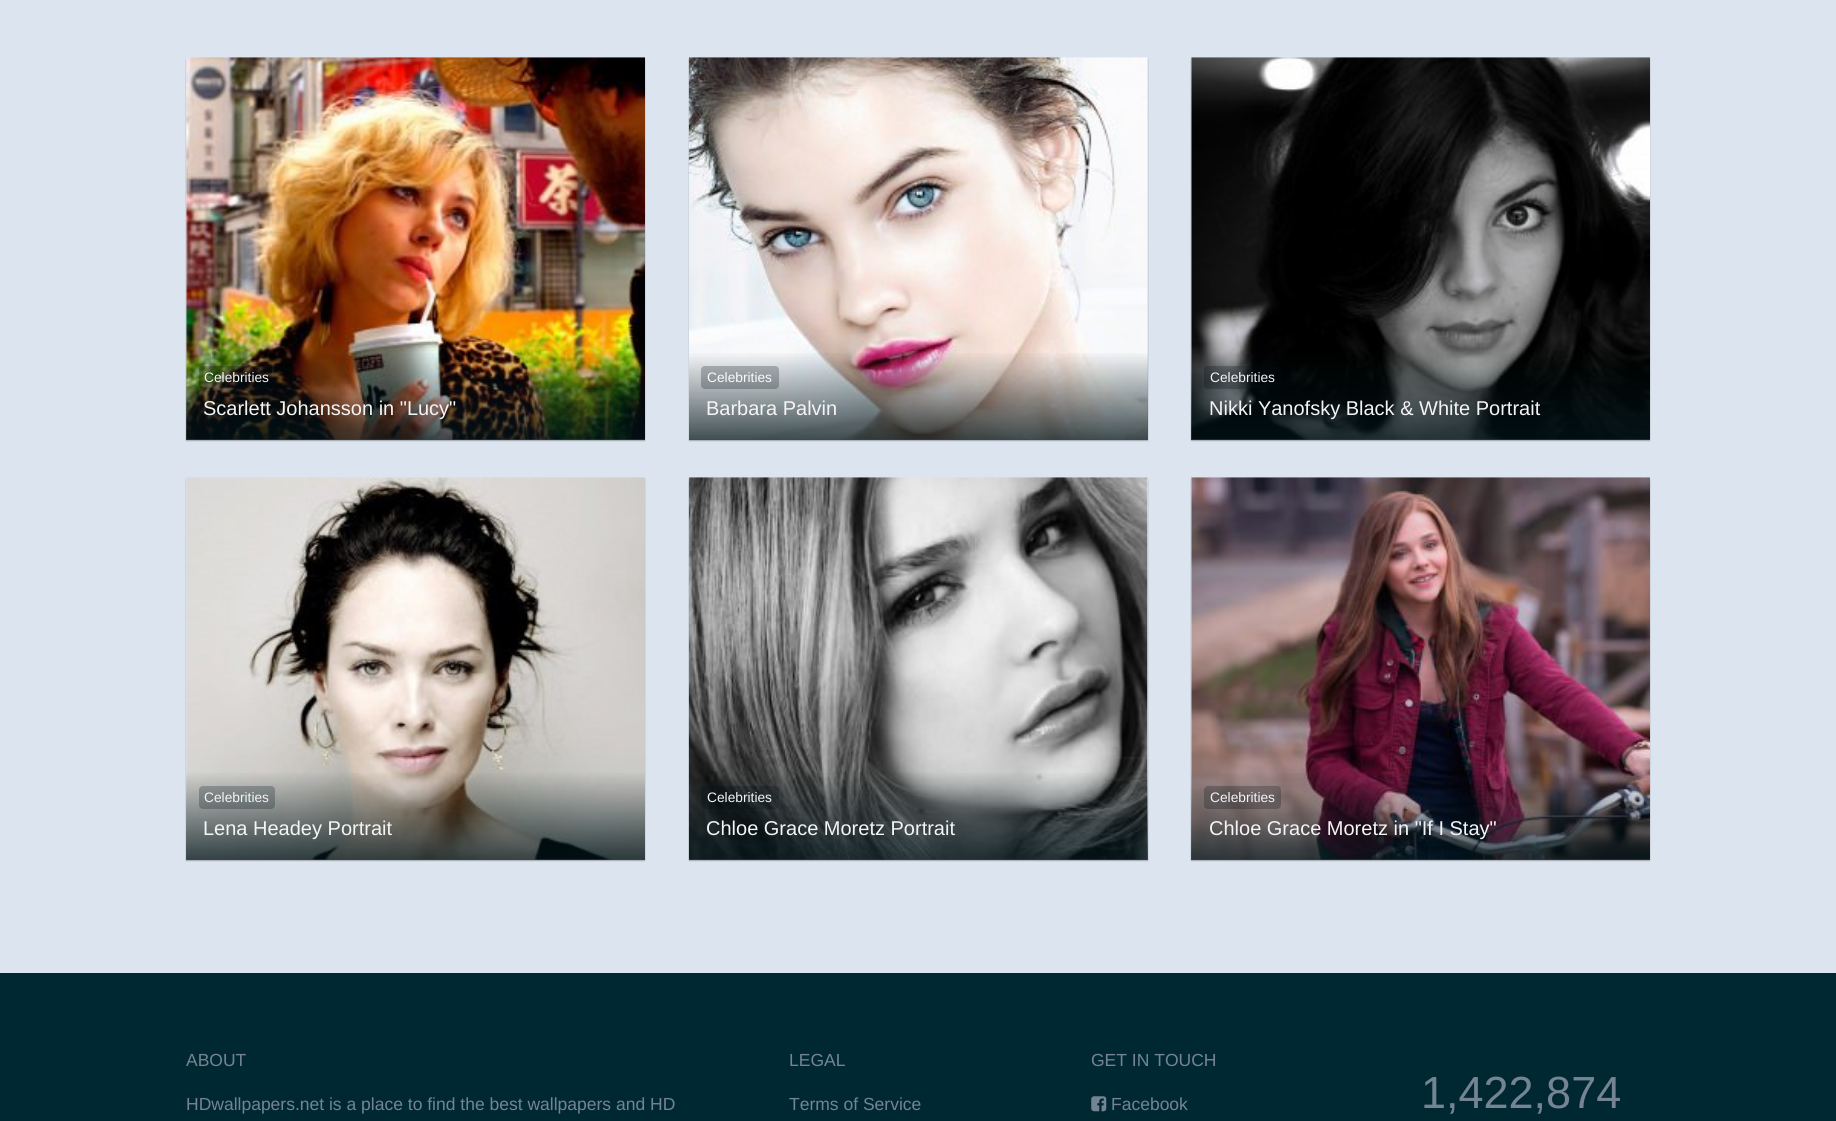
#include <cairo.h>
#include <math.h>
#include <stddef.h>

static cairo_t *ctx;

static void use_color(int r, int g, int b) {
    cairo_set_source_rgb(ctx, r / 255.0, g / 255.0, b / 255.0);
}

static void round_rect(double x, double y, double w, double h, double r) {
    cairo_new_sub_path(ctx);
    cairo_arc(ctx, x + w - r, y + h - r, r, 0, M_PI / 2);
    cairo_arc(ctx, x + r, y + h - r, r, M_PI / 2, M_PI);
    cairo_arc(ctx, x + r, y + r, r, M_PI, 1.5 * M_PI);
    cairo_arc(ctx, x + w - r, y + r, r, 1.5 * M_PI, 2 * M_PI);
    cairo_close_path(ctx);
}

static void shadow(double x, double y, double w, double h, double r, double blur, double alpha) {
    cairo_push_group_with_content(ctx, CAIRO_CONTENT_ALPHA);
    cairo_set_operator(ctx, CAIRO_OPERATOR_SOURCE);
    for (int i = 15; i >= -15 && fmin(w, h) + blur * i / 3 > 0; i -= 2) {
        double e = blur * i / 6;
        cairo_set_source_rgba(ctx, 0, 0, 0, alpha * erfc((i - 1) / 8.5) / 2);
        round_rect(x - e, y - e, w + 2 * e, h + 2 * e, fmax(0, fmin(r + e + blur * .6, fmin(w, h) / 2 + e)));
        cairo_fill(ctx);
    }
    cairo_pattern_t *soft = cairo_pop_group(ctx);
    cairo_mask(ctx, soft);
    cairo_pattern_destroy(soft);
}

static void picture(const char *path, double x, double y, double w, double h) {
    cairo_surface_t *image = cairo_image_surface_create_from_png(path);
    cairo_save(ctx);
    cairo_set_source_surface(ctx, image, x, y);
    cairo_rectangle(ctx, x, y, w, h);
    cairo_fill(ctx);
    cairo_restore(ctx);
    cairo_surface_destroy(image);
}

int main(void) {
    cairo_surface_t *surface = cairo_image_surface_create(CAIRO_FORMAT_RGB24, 1836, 1121);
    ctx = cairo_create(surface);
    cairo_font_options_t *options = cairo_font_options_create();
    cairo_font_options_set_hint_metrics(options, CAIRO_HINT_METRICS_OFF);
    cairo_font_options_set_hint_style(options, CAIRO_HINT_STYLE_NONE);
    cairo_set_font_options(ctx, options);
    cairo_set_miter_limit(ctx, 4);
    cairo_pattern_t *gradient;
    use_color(220, 228, 239);
    cairo_paint(ctx);
    use_color(0, 0, 0);
    shadow(186, 59, 459, 382, 0, 0.5, 0.25);
    use_color(220, 228, 239);
    cairo_rectangle(ctx, 186, 58, 459, 382);
    cairo_fill(ctx);
    picture("img1.png", 186, 57, 459, 383);
    gradient = cairo_pattern_create_linear(416, 440, 416, 346);
    cairo_pattern_add_color_stop_rgba(gradient, 0, 0, 0.078, 0.098, 0.75);
    cairo_pattern_add_color_stop_rgba(gradient, 0.95, 0, 0.078, 0.098, 0);
    cairo_set_source(ctx, gradient);
    cairo_pattern_destroy(gradient);
    cairo_rectangle(ctx, 186, 353, 459, 87);
    cairo_fill(ctx);
    cairo_set_source_rgba(ctx, 0, 0.078, 0.102, 0.25);
    round_rect(199, 366, 76, 23, 4);
    cairo_fill(ctx);
    cairo_select_font_face(ctx, "Liberation Sans", CAIRO_FONT_SLANT_NORMAL, CAIRO_FONT_WEIGHT_NORMAL);
    cairo_set_font_size(ctx, 13.75);
    use_color(244, 244, 244);
    cairo_move_to(ctx, 204, 382);
    cairo_show_text(ctx, "Celebrities");
    cairo_set_font_size(ctx, 20);
    cairo_move_to(ctx, 203, 415);
    cairo_show_text(ctx, "Scarlett Johansson in \"Lucy\"");
    use_color(0, 0, 0);
    shadow(689, 59, 459, 382, 0, 0.5, 0.25);
    use_color(220, 228, 239);
    cairo_rectangle(ctx, 689, 58, 459, 382);
    cairo_fill(ctx);
    picture("img2.png", 688, 57, 460, 383);
    gradient = cairo_pattern_create_linear(918, 440, 918, 346);
    cairo_pattern_add_color_stop_rgba(gradient, 0, 0, 0.078, 0.098, 0.75);
    cairo_pattern_add_color_stop_rgba(gradient, 0.95, 0, 0.078, 0.098, 0);
    cairo_set_source(ctx, gradient);
    cairo_pattern_destroy(gradient);
    cairo_rectangle(ctx, 689, 353, 459, 87);
    cairo_fill(ctx);
    cairo_set_source_rgba(ctx, 0, 0.078, 0.102, 0.25);
    round_rect(701, 366, 78, 23, 4);
    cairo_fill(ctx);
    cairo_set_font_size(ctx, 13.75);
    use_color(249, 250, 250);
    cairo_move_to(ctx, 707, 382);
    cairo_show_text(ctx, "Celebrities");
    cairo_set_font_size(ctx, 20);
    use_color(244, 244, 244);
    cairo_move_to(ctx, 706, 415);
    cairo_show_text(ctx, "Barbara Palvin");
    use_color(0, 0, 0);
    shadow(1191, 59, 459, 382, 0, 0.5, 0.25);
    use_color(220, 228, 239);
    cairo_rectangle(ctx, 1191, 58, 459, 382);
    cairo_fill(ctx);
    picture("img3.png", 1191, 57, 459, 383);
    gradient = cairo_pattern_create_linear(1421, 440, 1421, 346);
    cairo_pattern_add_color_stop_rgba(gradient, 0, 0, 0.078, 0.098, 0.75);
    cairo_pattern_add_color_stop_rgba(gradient, 0.95, 0, 0.078, 0.098, 0);
    cairo_set_source(ctx, gradient);
    cairo_pattern_destroy(gradient);
    cairo_rectangle(ctx, 1191, 353, 459, 87);
    cairo_fill(ctx);
    cairo_set_source_rgba(ctx, 0, 0.078, 0.102, 0.25);
    round_rect(1204, 366, 77, 23, 4);
    cairo_fill(ctx);
    cairo_set_font_size(ctx, 13.75);
    use_color(244, 244, 244);
    cairo_move_to(ctx, 1210, 382);
    cairo_show_text(ctx, "Celebrities");
    cairo_set_font_size(ctx, 20);
    cairo_move_to(ctx, 1209, 415);
    cairo_show_text(ctx, "Nikki Yanofsky Black & White Portrait");
    use_color(0, 0, 0);
    shadow(186, 479, 459, 382, 0, 0.5, 0.25);
    use_color(220, 228, 239);
    cairo_rectangle(ctx, 186, 478, 459, 382);
    cairo_fill(ctx);
    picture("img4.png", 186, 477, 459, 383);
    gradient = cairo_pattern_create_linear(416, 860, 416, 766);
    cairo_pattern_add_color_stop_rgba(gradient, 0, 0, 0.078, 0.098, 0.75);
    cairo_pattern_add_color_stop_rgba(gradient, 0.95, 0, 0.078, 0.098, 0);
    cairo_set_source(ctx, gradient);
    cairo_pattern_destroy(gradient);
    cairo_rectangle(ctx, 186, 773, 459, 87);
    cairo_fill(ctx);
    cairo_set_source_rgba(ctx, 0, 0.078, 0.102, 0.25);
    round_rect(199, 786, 76, 23, 4);
    cairo_fill(ctx);
    cairo_set_font_size(ctx, 13.75);
    use_color(244, 244, 244);
    cairo_move_to(ctx, 204, 802);
    cairo_show_text(ctx, "Celebrities");
    cairo_set_font_size(ctx, 20);
    cairo_move_to(ctx, 203, 835);
    cairo_show_text(ctx, "Lena Headey Portrait");
    use_color(0, 0, 0);
    shadow(689, 479, 459, 382, 0, 0.5, 0.25);
    use_color(220, 228, 239);
    cairo_rectangle(ctx, 689, 478, 459, 382);
    cairo_fill(ctx);
    picture("img5.png", 688, 477, 460, 383);
    gradient = cairo_pattern_create_linear(918, 860, 918, 766);
    cairo_pattern_add_color_stop_rgba(gradient, 0, 0, 0.078, 0.098, 0.75);
    cairo_pattern_add_color_stop_rgba(gradient, 0.95, 0, 0.078, 0.098, 0);
    cairo_set_source(ctx, gradient);
    cairo_pattern_destroy(gradient);
    cairo_rectangle(ctx, 689, 773, 459, 87);
    cairo_fill(ctx);
    cairo_set_source_rgba(ctx, 0, 0.078, 0.102, 0.25);
    round_rect(701, 786, 78, 23, 4);
    cairo_fill(ctx);
    cairo_set_font_size(ctx, 13.75);
    use_color(244, 244, 244);
    cairo_move_to(ctx, 707, 802);
    cairo_show_text(ctx, "Celebrities");
    cairo_set_font_size(ctx, 20);
    cairo_move_to(ctx, 706, 835);
    cairo_show_text(ctx, "Chloe Grace Moretz Portrait");
    use_color(0, 0, 0);
    shadow(1191, 479, 459, 382, 0, 0.5, 0.25);
    use_color(220, 228, 239);
    cairo_rectangle(ctx, 1191, 478, 459, 382);
    cairo_fill(ctx);
    picture("img6.png", 1191, 477, 459, 383);
    gradient = cairo_pattern_create_linear(1421, 860, 1421, 766);
    cairo_pattern_add_color_stop_rgba(gradient, 0, 0, 0.078, 0.098, 0.75);
    cairo_pattern_add_color_stop_rgba(gradient, 0.95, 0, 0.078, 0.098, 0);
    cairo_set_source(ctx, gradient);
    cairo_pattern_destroy(gradient);
    cairo_rectangle(ctx, 1191, 773, 459, 87);
    cairo_fill(ctx);
    cairo_set_source_rgba(ctx, 0, 0.078, 0.102, 0.25);
    round_rect(1204, 786, 77, 23, 4);
    cairo_fill(ctx);
    cairo_set_font_size(ctx, 13.75);
    use_color(244, 244, 244);
    cairo_move_to(ctx, 1210, 802);
    cairo_show_text(ctx, "Celebrities");
    cairo_set_font_size(ctx, 20);
    cairo_move_to(ctx, 1209, 835);
    cairo_show_text(ctx, "Chloe Grace Moretz in \"If I Stay\"");
    use_color(0, 40, 51);
    cairo_rectangle(ctx, 0, 973, 1836, 148);
    cairo_fill(ctx);
    cairo_set_font_size(ctx, 17.5);
    use_color(116, 132, 148);
    cairo_move_to(ctx, 186, 1066);
    cairo_show_text(ctx, "ABOUT");
    cairo_move_to(ctx, 186, 1110);
    cairo_show_text(ctx, "HDwallpapers.net is a place to find the best wallpapers and HD");
    cairo_move_to(ctx, 789, 1066);
    cairo_show_text(ctx, "LEGAL");
    cairo_move_to(ctx, 789, 1110);
    cairo_show_text(ctx, "Terms of Service");
    cairo_move_to(ctx, 1091, 1066);
    cairo_show_text(ctx, "GET IN TOUCH");
    picture("img7.png", 1091, 1096, 16, 16);
    cairo_move_to(ctx, 1111, 1110);
    cairo_show_text(ctx, "Facebook");
    cairo_set_font_size(ctx, 45);
    cairo_move_to(ctx, 1421, 1108);
    cairo_show_text(ctx, "1,422,874");
    cairo_surface_write_to_png(surface, "result.png");
    cairo_font_options_destroy(options);
    cairo_destroy(ctx);
    cairo_surface_destroy(surface);
    return 0;
}
